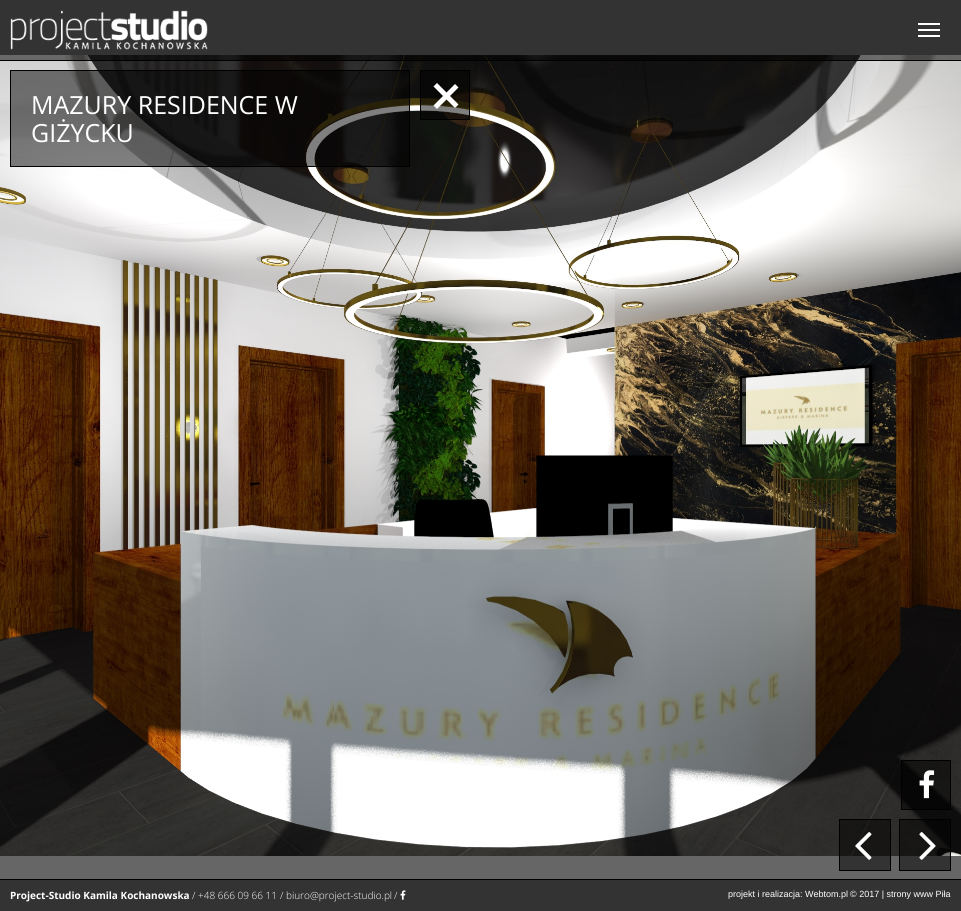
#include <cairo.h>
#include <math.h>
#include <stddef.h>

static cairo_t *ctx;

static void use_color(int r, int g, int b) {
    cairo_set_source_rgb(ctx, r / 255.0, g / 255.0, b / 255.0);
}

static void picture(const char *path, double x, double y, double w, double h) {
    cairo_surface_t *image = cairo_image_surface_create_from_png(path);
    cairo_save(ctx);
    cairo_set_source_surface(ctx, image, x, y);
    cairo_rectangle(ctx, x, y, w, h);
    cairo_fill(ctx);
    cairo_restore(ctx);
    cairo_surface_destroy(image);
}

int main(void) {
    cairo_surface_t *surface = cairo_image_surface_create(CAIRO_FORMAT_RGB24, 961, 911);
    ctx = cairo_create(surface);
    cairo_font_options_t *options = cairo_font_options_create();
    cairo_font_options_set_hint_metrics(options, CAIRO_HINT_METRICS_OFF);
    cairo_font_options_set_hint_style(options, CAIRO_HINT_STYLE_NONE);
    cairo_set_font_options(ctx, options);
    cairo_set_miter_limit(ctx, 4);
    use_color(102, 102, 102);
    cairo_paint(ctx);
    picture("img2.png", 0, 55, 961, 801);
    cairo_set_source_rgba(ctx, 0, 0, 0, 0.5);
    cairo_rectangle(ctx, 0, 0, 961, 60);
    cairo_fill(ctx);
    use_color(0, 0, 0);
    cairo_rectangle(ctx, 0, 60, 961, 1);
    cairo_fill(ctx);
    picture("img1.png", 10, 10, 198, 40);
    use_color(255, 255, 255);
    cairo_rectangle(ctx, 918, 23, 22, 2);
    cairo_fill(ctx);
    cairo_rectangle(ctx, 918, 29, 22, 2);
    cairo_fill(ctx);
    cairo_rectangle(ctx, 918, 35, 22, 2);
    cairo_fill(ctx);
    cairo_set_source_rgba(ctx, 0, 0, 0, 0.5);
    cairo_rectangle(ctx, 839.5, 819.5, 51, 51);
    cairo_fill_preserve(ctx);
    use_color(0, 0, 0);
    cairo_set_line_width(ctx, 1);
    cairo_stroke(ctx);
    picture("img3.png", 855, 832, 17, 28);
    cairo_set_source_rgba(ctx, 0, 0, 0, 0.5);
    cairo_rectangle(ctx, 899.5, 819.5, 51, 51);
    cairo_fill_preserve(ctx);
    use_color(0, 0, 0);
    cairo_stroke(ctx);
    picture("img4.png", 919, 832, 17, 28);
    cairo_set_source_rgba(ctx, 0, 0, 0, 0.5);
    cairo_rectangle(ctx, 10.5, 70.5, 399, 96);
    cairo_fill_preserve(ctx);
    use_color(0, 0, 0);
    cairo_stroke(ctx);
    cairo_select_font_face(ctx, "Open Sans", CAIRO_FONT_SLANT_NORMAL, CAIRO_FONT_WEIGHT_NORMAL);
    cairo_set_font_size(ctx, 25);
    use_color(255, 255, 255);
    cairo_move_to(ctx, 31, 114);
    cairo_show_text(ctx, "MAZURY RESIDENCE W");
    cairo_move_to(ctx, 31, 142);
    cairo_show_text(ctx, "GIŻYCKU");
    cairo_set_source_rgba(ctx, 0, 0, 0, 0.5);
    cairo_rectangle(ctx, 420.5, 70.5, 49, 49);
    cairo_fill_preserve(ctx);
    use_color(0, 0, 0);
    cairo_stroke(ctx);
    use_color(255, 255, 255);
    cairo_new_path(ctx);
    cairo_move_to(ctx, 437, 83);
    cairo_line_to(ctx, 458.5, 104.5);
    cairo_line_to(ctx, 455, 108);
    cairo_line_to(ctx, 433.5, 86.5);
    cairo_close_path(ctx);
    cairo_fill(ctx);
    cairo_new_path(ctx);
    cairo_move_to(ctx, 433.5, 105.5);
    cairo_line_to(ctx, 455, 84);
    cairo_line_to(ctx, 458.5, 87.5);
    cairo_line_to(ctx, 437, 109);
    cairo_close_path(ctx);
    cairo_fill(ctx);
    cairo_set_source_rgba(ctx, 0, 0, 0, 0.5);
    cairo_rectangle(ctx, 901.5, 760.5, 49, 49);
    cairo_fill_preserve(ctx);
    use_color(0, 0, 0);
    cairo_stroke(ctx);
    picture("img5.png", 919, 770, 16, 29);
    use_color(51, 51, 51);
    cairo_rectangle(ctx, 0, 880, 961, 31);
    cairo_fill(ctx);
    use_color(0, 0, 0);
    cairo_rectangle(ctx, 0, 879, 961, 1);
    cairo_fill(ctx);
    cairo_select_font_face(ctx, "Open Sans", CAIRO_FONT_SLANT_NORMAL, CAIRO_FONT_WEIGHT_BOLD);
    cairo_set_font_size(ctx, 10);
    use_color(255, 255, 255);
    cairo_move_to(ctx, 10, 899);
    cairo_show_text(ctx, "Project-Studio Kamila Kochanowska");
    cairo_select_font_face(ctx, "Open Sans Light", CAIRO_FONT_SLANT_NORMAL, CAIRO_FONT_WEIGHT_NORMAL);
    cairo_move_to(ctx, 192, 899);
    cairo_show_text(ctx, "/ +48 666 09 66 11");
    cairo_move_to(ctx, 280, 899);
    cairo_show_text(ctx, "/ biuro@project-studio.pl");
    cairo_move_to(ctx, 394, 899);
    cairo_show_text(ctx, "/");
    picture("img6.png", 400, 890, 6, 10);
    cairo_select_font_face(ctx, "Liberation Sans", CAIRO_FONT_SLANT_NORMAL, CAIRO_FONT_WEIGHT_NORMAL);
    cairo_set_font_size(ctx, 9);
    cairo_move_to(ctx, 728, 897);
    cairo_show_text(ctx, "projekt i realizacja: Webtom.pl");
    cairo_move_to(ctx, 850, 897);
    cairo_show_text(ctx, "© 2017 | strony www Piła");
    cairo_surface_write_to_png(surface, "result.png");
    cairo_font_options_destroy(options);
    cairo_destroy(ctx);
    cairo_surface_destroy(surface);
    return 0;
}
